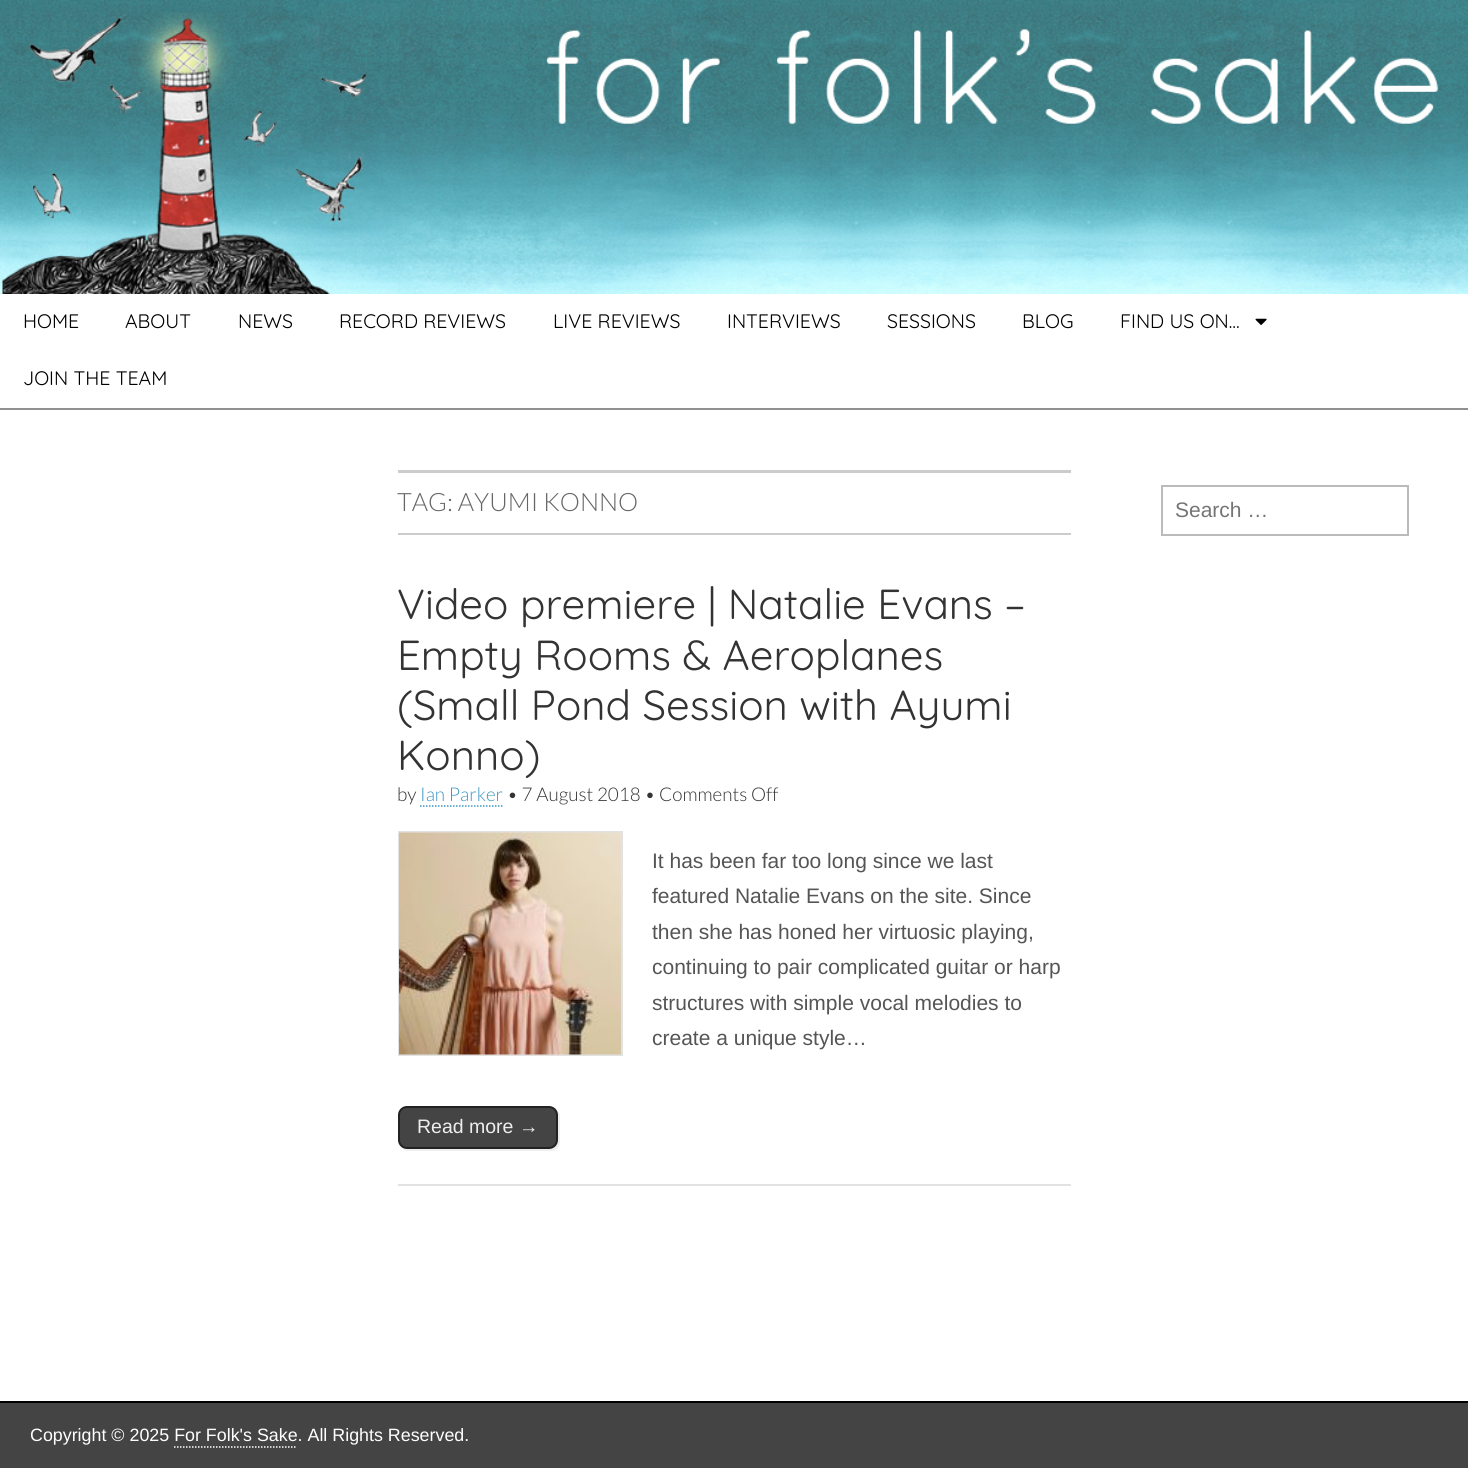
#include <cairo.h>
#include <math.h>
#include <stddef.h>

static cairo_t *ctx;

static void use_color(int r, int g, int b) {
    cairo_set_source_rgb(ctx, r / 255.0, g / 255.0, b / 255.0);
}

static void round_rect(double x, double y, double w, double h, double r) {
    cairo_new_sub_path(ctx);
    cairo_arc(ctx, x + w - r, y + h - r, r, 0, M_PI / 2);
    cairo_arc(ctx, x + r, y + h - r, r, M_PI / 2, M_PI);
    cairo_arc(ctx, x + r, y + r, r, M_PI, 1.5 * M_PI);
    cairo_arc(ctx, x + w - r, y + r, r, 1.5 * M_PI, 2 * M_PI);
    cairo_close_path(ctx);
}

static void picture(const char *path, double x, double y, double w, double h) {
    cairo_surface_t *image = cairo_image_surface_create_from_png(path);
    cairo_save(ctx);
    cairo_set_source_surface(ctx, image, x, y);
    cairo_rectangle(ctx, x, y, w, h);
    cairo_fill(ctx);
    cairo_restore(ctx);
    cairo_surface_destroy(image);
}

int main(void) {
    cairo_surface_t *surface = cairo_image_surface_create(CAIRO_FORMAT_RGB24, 1468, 1468);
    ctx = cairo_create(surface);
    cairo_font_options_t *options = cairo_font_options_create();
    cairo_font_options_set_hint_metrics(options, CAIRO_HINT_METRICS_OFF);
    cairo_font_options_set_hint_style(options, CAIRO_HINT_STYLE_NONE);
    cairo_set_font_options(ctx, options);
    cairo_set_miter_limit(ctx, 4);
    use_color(255, 255, 255);
    cairo_paint(ctx);
    picture("img1.png", 0, 0, 1468, 294);
    use_color(144, 144, 144);
    cairo_rectangle(ctx, 0, 408, 1468, 2);
    cairo_fill(ctx);
    cairo_select_font_face(ctx, "Quicksand", CAIRO_FONT_SLANT_NORMAL, CAIRO_FONT_WEIGHT_NORMAL);
    cairo_set_font_size(ctx, 19.5);
    use_color(0, 0, 0);
    cairo_move_to(ctx, 23, 328);
    cairo_show_text(ctx, "HOME");
    cairo_move_to(ctx, 125, 328);
    cairo_show_text(ctx, "ABOUT");
    cairo_move_to(ctx, 238, 328);
    cairo_show_text(ctx, "NEWS");
    cairo_move_to(ctx, 339, 328);
    cairo_show_text(ctx, "RECORD REVIEWS");
    cairo_move_to(ctx, 553, 328);
    cairo_show_text(ctx, "LIVE REVIEWS");
    cairo_move_to(ctx, 727, 328);
    cairo_show_text(ctx, "INTERVIEWS");
    cairo_move_to(ctx, 887, 328);
    cairo_show_text(ctx, "SESSIONS");
    cairo_move_to(ctx, 1022, 328);
    cairo_show_text(ctx, "BLOG");
    cairo_move_to(ctx, 1120, 328);
    cairo_show_text(ctx, "FIND US ON…");
    picture("img2.png", 1255, 318, 12, 7);
    cairo_move_to(ctx, 23, 385);
    cairo_show_text(ctx, "JOIN THE TEAM");
    use_color(204, 204, 204);
    cairo_rectangle(ctx, 398, 470, 673, 3);
    cairo_fill(ctx);
    cairo_rectangle(ctx, 398, 533, 673, 2);
    cairo_fill(ctx);
    cairo_select_font_face(ctx, "Lato Light", CAIRO_FONT_SLANT_NORMAL, CAIRO_FONT_WEIGHT_NORMAL);
    cairo_set_font_size(ctx, 25.25);
    use_color(102, 102, 102);
    cairo_move_to(ctx, 397, 511);
    cairo_show_text(ctx, "TAG: AYUMI KONNO");
    cairo_select_font_face(ctx, "Quicksand", CAIRO_FONT_SLANT_NORMAL, CAIRO_FONT_WEIGHT_NORMAL);
    cairo_set_font_size(ctx, 42);
    use_color(51, 51, 51);
    cairo_move_to(ctx, 397, 619);
    cairo_show_text(ctx, "Video premiere | Natalie Evans –");
    cairo_move_to(ctx, 397, 670);
    cairo_show_text(ctx, "Empty Rooms & Aeroplanes");
    cairo_move_to(ctx, 397, 720);
    cairo_show_text(ctx, "(Small Pond Session with Ayumi");
    cairo_move_to(ctx, 397, 770);
    cairo_show_text(ctx, "Konno)");
    cairo_select_font_face(ctx, "Lato Light", CAIRO_FONT_SLANT_NORMAL, CAIRO_FONT_WEIGHT_NORMAL);
    cairo_set_font_size(ctx, 18.9);
    cairo_move_to(ctx, 397, 801);
    cairo_show_text(ctx, "by");
    use_color(61, 151, 194);
    cairo_move_to(ctx, 420, 801);
    cairo_show_text(ctx, "Ian Parker");
    cairo_new_path(ctx);
    cairo_move_to(ctx, 420, 806);
    cairo_line_to(ctx, 504, 806);
    cairo_set_line_width(ctx, 1.5);
    cairo_set_dash(ctx, (double[]){1.5, 1.5}, 2, 0);
    cairo_stroke(ctx);
    use_color(51, 51, 51);
    cairo_move_to(ctx, 507, 801);
    cairo_show_text(ctx, "• 7 August 2018 • Comments Off");
    use_color(226, 226, 226);
    cairo_rectangle(ctx, 398, 1184, 673, 2);
    cairo_fill(ctx);
    cairo_rectangle(ctx, 399, 832, 223, 223);
    cairo_set_line_width(ctx, 2);
    cairo_set_dash(ctx, NULL, 0, 0);
    cairo_stroke(ctx);
    picture("img3.png", 399, 832, 222, 223);
    cairo_select_font_face(ctx, "Liberation Sans", CAIRO_FONT_SLANT_NORMAL, CAIRO_FONT_WEIGHT_NORMAL);
    cairo_set_font_size(ctx, 21);
    use_color(85, 85, 85);
    cairo_move_to(ctx, 652, 868);
    cairo_show_text(ctx, "It has been far too long since we last");
    cairo_move_to(ctx, 652, 903);
    cairo_show_text(ctx, "featured Natalie Evans on the site. Since");
    cairo_move_to(ctx, 652, 939);
    cairo_show_text(ctx, "then she has honed her virtuosic playing,");
    cairo_move_to(ctx, 652, 974);
    cairo_show_text(ctx, "continuing to pair complicated guitar or harp");
    cairo_move_to(ctx, 652, 1010);
    cairo_show_text(ctx, "structures with simple vocal melodies to");
    cairo_move_to(ctx, 652, 1045);
    cairo_show_text(ctx, "create a unique style…");
    use_color(238, 238, 238);
    cairo_new_path(ctx);
    cairo_move_to(ctx, 400, 1146);
    cairo_curve_to(ctx, 402, 1149, 405, 1151, 408, 1151);
    cairo_line_to(ctx, 551, 1151);
    cairo_curve_to(ctx, 556, 1151, 560, 1147, 560, 1142);
    cairo_line_to(ctx, 560, 1116);
    cairo_curve_to(ctx, 560, 1113, 558, 1110, 555, 1108);
    cairo_curve_to(ctx, 557, 1110, 558, 1112, 558, 1114);
    cairo_line_to(ctx, 558, 1140);
    cairo_curve_to(ctx, 558, 1145, 554, 1149, 549, 1149);
    cairo_line_to(ctx, 406, 1149);
    cairo_curve_to(ctx, 404, 1149, 402, 1148, 400, 1146);
    cairo_close_path(ctx);
    cairo_fill(ctx);
    use_color(68, 68, 68);
    round_rect(399, 1107, 158, 41, 8);
    cairo_fill_preserve(ctx);
    use_color(34, 34, 34);
    cairo_stroke(ctx);
    cairo_set_font_size(ctx, 19.5);
    use_color(238, 238, 238);
    cairo_move_to(ctx, 417, 1133);
    cairo_show_text(ctx, "Read more →");
    cairo_rectangle(ctx, 1162, 486, 246, 49);
    use_color(187, 187, 187);
    cairo_stroke(ctx);
    cairo_set_font_size(ctx, 21);
    use_color(117, 117, 117);
    cairo_move_to(ctx, 1175, 517);
    cairo_show_text(ctx, "Search …");
    use_color(68, 68, 68);
    cairo_rectangle(ctx, 0, 1403, 1468, 65);
    cairo_fill(ctx);
    use_color(0, 0, 0);
    cairo_rectangle(ctx, 0, 1401, 1468, 2);
    cairo_fill(ctx);
    cairo_set_font_size(ctx, 17.85);
    use_color(255, 255, 255);
    cairo_move_to(ctx, 30, 1441);
    cairo_show_text(ctx, "Copyright © 2025 For Folk's Sake. All Rights Reserved.");
    cairo_new_path(ctx);
    cairo_move_to(ctx, 174, 1447);
    cairo_line_to(ctx, 297, 1447);
    cairo_set_line_width(ctx, 1.5);
    cairo_set_dash(ctx, (double[]){1.5, 1.5}, 2, 0);
    cairo_stroke(ctx);
    cairo_surface_write_to_png(surface, "result.png");
    cairo_font_options_destroy(options);
    cairo_destroy(ctx);
    cairo_surface_destroy(surface);
    return 0;
}
